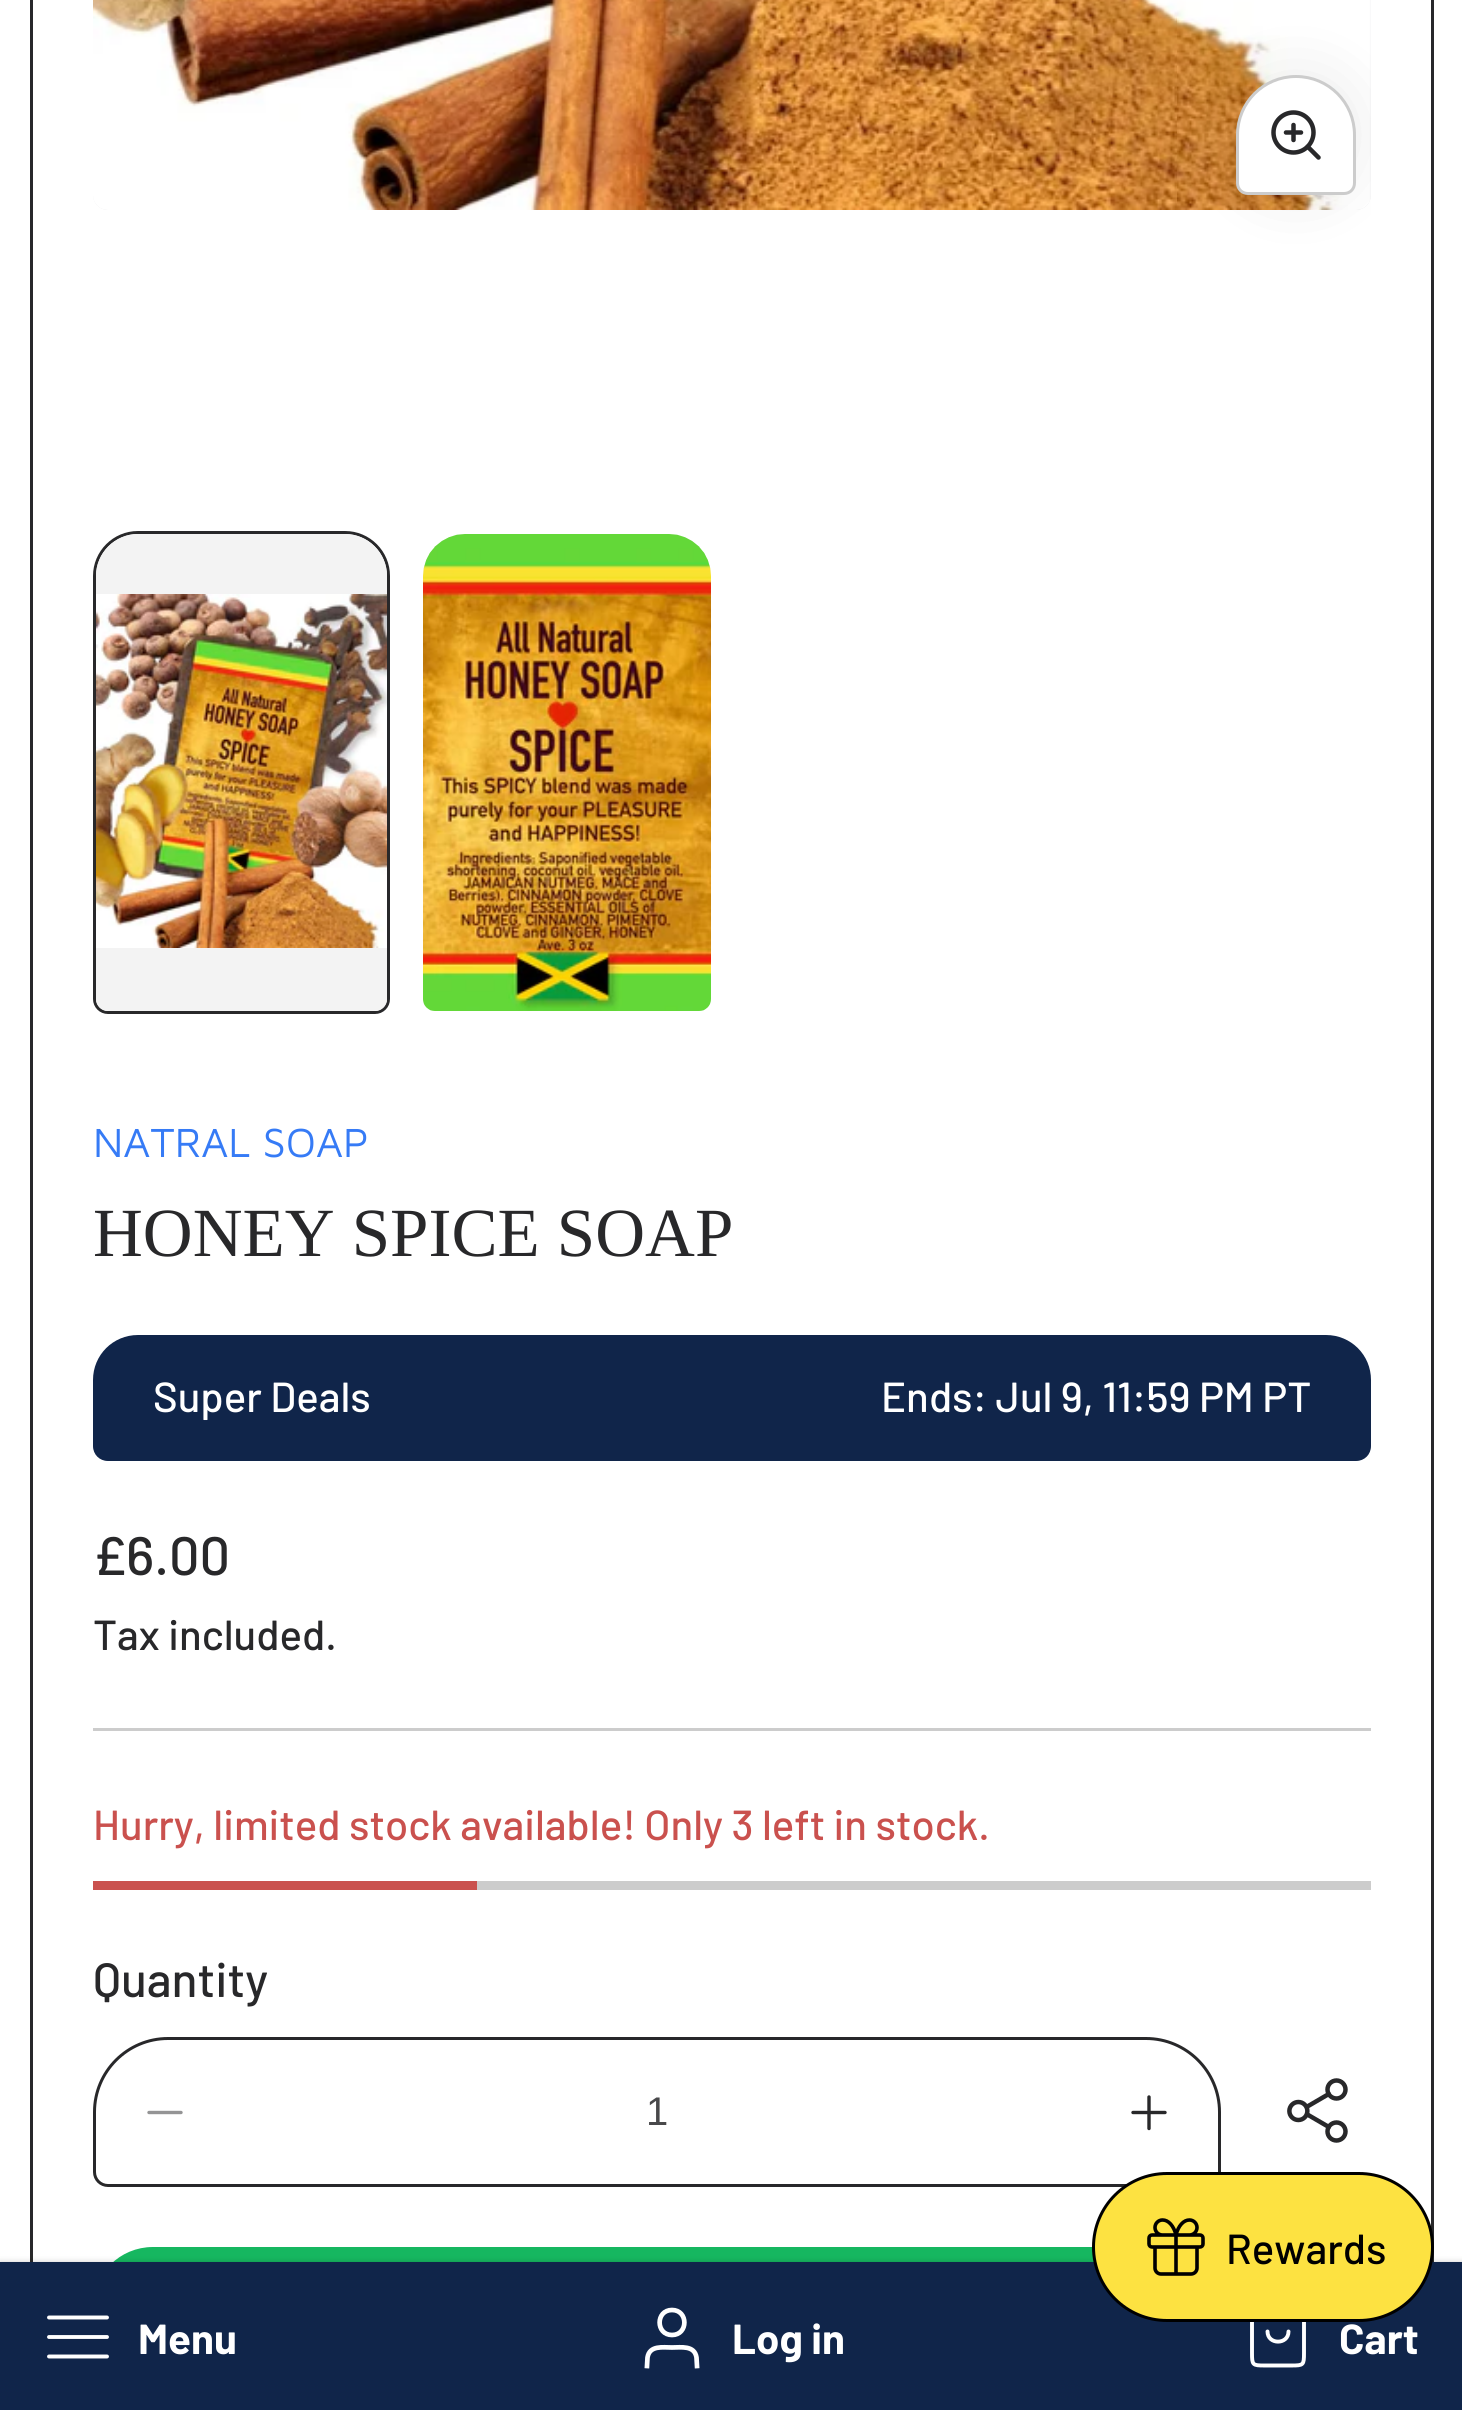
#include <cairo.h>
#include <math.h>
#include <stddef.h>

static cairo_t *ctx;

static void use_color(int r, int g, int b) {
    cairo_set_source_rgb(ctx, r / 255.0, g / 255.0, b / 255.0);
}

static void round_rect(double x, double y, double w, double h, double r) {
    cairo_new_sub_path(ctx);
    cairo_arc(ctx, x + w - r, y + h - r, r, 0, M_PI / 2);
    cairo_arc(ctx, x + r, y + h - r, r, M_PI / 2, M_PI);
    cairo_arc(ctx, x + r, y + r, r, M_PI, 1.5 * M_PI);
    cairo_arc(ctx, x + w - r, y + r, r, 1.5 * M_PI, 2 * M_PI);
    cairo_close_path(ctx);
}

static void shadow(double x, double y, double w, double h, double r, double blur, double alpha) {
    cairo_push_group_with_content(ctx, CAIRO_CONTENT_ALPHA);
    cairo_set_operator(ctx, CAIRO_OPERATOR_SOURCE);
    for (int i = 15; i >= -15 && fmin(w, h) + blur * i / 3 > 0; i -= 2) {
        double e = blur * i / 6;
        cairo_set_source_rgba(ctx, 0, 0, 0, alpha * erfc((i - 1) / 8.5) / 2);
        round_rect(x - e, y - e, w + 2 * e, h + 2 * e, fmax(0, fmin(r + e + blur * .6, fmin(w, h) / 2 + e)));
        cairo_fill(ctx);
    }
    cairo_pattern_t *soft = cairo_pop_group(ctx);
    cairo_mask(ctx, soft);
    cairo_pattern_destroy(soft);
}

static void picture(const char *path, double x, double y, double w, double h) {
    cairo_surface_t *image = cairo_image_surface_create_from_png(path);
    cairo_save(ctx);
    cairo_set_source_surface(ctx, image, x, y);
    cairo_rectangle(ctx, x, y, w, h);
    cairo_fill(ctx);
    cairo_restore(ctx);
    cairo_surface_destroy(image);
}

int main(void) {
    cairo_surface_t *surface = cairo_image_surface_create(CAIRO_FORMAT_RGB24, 1462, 2410);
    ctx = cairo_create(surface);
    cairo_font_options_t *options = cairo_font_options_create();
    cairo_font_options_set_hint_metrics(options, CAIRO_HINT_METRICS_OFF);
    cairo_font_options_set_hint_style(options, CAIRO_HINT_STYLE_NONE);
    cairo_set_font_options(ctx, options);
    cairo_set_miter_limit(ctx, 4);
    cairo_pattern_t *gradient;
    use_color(255, 255, 255);
    cairo_paint(ctx);
    cairo_rectangle(ctx, 31.5, -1.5, 1401, 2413);
    use_color(40, 40, 42);
    cairo_set_line_width(ctx, 3);
    cairo_stroke(ctx);
    gradient = cairo_pattern_create_linear(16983, 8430, 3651, -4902);
    cairo_pattern_add_color_stop_rgba(gradient, 0, 0.867, 0.867, 0.867, 1);
    cairo_pattern_add_color_stop_rgba(gradient, 1, 0.949, 0.949, 0.953, 1);
    cairo_set_source(ctx, gradient);
    cairo_pattern_destroy(gradient);
    cairo_new_path(ctx);
    cairo_move_to(ctx, 153, -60);
    cairo_line_to(ctx, 1311, -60);
    cairo_curve_to(ctx, 1344, -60, 1371, -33, 1371, 0);
    cairo_line_to(ctx, 1371, 195);
    cairo_curve_to(ctx, 1371, 203.5, 1364.5, 210, 1356, 210);
    cairo_line_to(ctx, 108, 210);
    cairo_curve_to(ctx, 99.5, 210, 93, 203.5, 93, 195);
    cairo_line_to(ctx, 93, 0);
    cairo_curve_to(ctx, 93, -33, 120, -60, 153, -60);
    cairo_close_path(ctx);
    cairo_fill(ctx);
    picture("img1.png", 93, 0, 1278, 210);
    cairo_save(ctx);
    cairo_rectangle(ctx, 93, 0, 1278, 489);
    cairo_clip(ctx);
    use_color(0, 0, 0);
    shadow(1236, 75, 120, 120, 60, 33, 0.08);
    cairo_restore(ctx);
    use_color(255, 255, 255);
    cairo_new_path(ctx);
    cairo_move_to(ctx, 1296, 76.5);
    cairo_curve_to(ctx, 1328.5, 76.5, 1354.5, 102.5, 1354.5, 135);
    cairo_line_to(ctx, 1354.5, 183);
    cairo_curve_to(ctx, 1354.5, 189, 1350, 193.5, 1344, 193.5);
    cairo_line_to(ctx, 1248, 193.5);
    cairo_curve_to(ctx, 1242, 193.5, 1237.5, 189, 1237.5, 183);
    cairo_line_to(ctx, 1237.5, 135);
    cairo_curve_to(ctx, 1237.5, 102.5, 1263.5, 76.5, 1296, 76.5);
    cairo_close_path(ctx);
    cairo_fill_preserve(ctx);
    use_color(204, 204, 204);
    cairo_stroke(ctx);
    cairo_new_path(ctx);
    cairo_move_to(ctx, 1293.5, 152.5);
    cairo_curve_to(ctx, 1304.5, 152.5, 1313.5, 143.5, 1313.5, 132.5);
    cairo_curve_to(ctx, 1313.5, 121.5, 1304.5, 112.5, 1293.5, 112.5);
    cairo_curve_to(ctx, 1282.5, 112.5, 1273.5, 121.5, 1273.5, 132.5);
    cairo_curve_to(ctx, 1273.5, 143.5, 1282.5, 152.5, 1293.5, 152.5);
    cairo_close_path(ctx);
    cairo_move_to(ctx, 1318.5, 157.5);
    cairo_line_to(ctx, 1307.5, 146.5);
    cairo_move_to(ctx, 1293.5, 125);
    cairo_line_to(ctx, 1293.5, 140);
    cairo_move_to(ctx, 1286, 132.5);
    cairo_line_to(ctx, 1301, 132.5);
    use_color(40, 40, 42);
    cairo_set_line_width(ctx, 4.5);
    cairo_set_line_cap(ctx, CAIRO_LINE_CAP_ROUND);
    cairo_set_line_join(ctx, CAIRO_LINE_JOIN_ROUND);
    cairo_stroke(ctx);
    cairo_new_path(ctx);
    cairo_move_to(ctx, 138, 532.5);
    cairo_line_to(ctx, 345, 532.5);
    cairo_curve_to(ctx, 369, 532.5, 388.5, 552, 388.5, 576);
    cairo_line_to(ctx, 388.5, 999);
    cairo_curve_to(ctx, 388.5, 1006.5, 382.5, 1012.5, 375, 1012.5);
    cairo_line_to(ctx, 108, 1012.5);
    cairo_curve_to(ctx, 100.5, 1012.5, 94.5, 1006.5, 94.5, 999);
    cairo_line_to(ctx, 94.5, 576);
    cairo_curve_to(ctx, 94.5, 552, 114, 532.5, 138, 532.5);
    cairo_close_path(ctx);
    cairo_set_line_width(ctx, 3);
    cairo_set_line_cap(ctx, CAIRO_LINE_CAP_BUTT);
    cairo_set_line_join(ctx, CAIRO_LINE_JOIN_MITER);
    cairo_stroke(ctx);
    use_color(243, 243, 243);
    cairo_new_path(ctx);
    cairo_move_to(ctx, 138, 534);
    cairo_line_to(ctx, 345, 534);
    cairo_curve_to(ctx, 368, 534, 387, 553, 387, 576);
    cairo_line_to(ctx, 387, 999);
    cairo_curve_to(ctx, 387, 1005.5, 381.5, 1011, 375, 1011);
    cairo_line_to(ctx, 108, 1011);
    cairo_curve_to(ctx, 101.5, 1011, 96, 1005.5, 96, 999);
    cairo_line_to(ctx, 96, 576);
    cairo_curve_to(ctx, 96, 553, 115, 534, 138, 534);
    cairo_close_path(ctx);
    cairo_fill(ctx);
    picture("img2.png", 96, 594, 291, 354);
    cairo_new_path(ctx);
    cairo_move_to(ctx, 465, 534);
    cairo_line_to(ctx, 669, 534);
    cairo_curve_to(ctx, 692, 534, 711, 553, 711, 576);
    cairo_line_to(ctx, 711, 999);
    cairo_curve_to(ctx, 711, 1005.5, 705.5, 1011, 699, 1011);
    cairo_line_to(ctx, 435, 1011);
    cairo_curve_to(ctx, 428.5, 1011, 423, 1005.5, 423, 999);
    cairo_line_to(ctx, 423, 576);
    cairo_curve_to(ctx, 423, 553, 442, 534, 465, 534);
    cairo_close_path(ctx);
    cairo_fill(ctx);
    picture("img3.png", 423, 534, 288, 477);
    cairo_select_font_face(ctx, "Maven Pro", CAIRO_FONT_SLANT_NORMAL, CAIRO_FONT_WEIGHT_NORMAL);
    cairo_set_font_size(ctx, 42);
    use_color(54, 123, 246);
    cairo_move_to(ctx, 93, 1157);
    cairo_show_text(ctx, "NATRAL SOAP");
    cairo_select_font_face(ctx, "Liberation Serif", CAIRO_FONT_SLANT_NORMAL, CAIRO_FONT_WEIGHT_NORMAL);
    cairo_set_font_size(ctx, 69);
    use_color(40, 40, 42);
    cairo_move_to(ctx, 93, 1256);
    cairo_show_text(ctx, "HONEY SPICE SOAP");
    use_color(16, 37, 74);
    cairo_new_path(ctx);
    cairo_move_to(ctx, 138, 1335);
    cairo_line_to(ctx, 1326, 1335);
    cairo_curve_to(ctx, 1351, 1335, 1371, 1355, 1371, 1380);
    cairo_line_to(ctx, 1371, 1446);
    cairo_curve_to(ctx, 1371, 1454.5, 1364.5, 1461, 1356, 1461);
    cairo_line_to(ctx, 108, 1461);
    cairo_curve_to(ctx, 99.5, 1461, 93, 1454.5, 93, 1446);
    cairo_line_to(ctx, 93, 1380);
    cairo_curve_to(ctx, 93, 1355, 113, 1335, 138, 1335);
    cairo_close_path(ctx);
    cairo_fill(ctx);
    cairo_select_font_face(ctx, "Barlow Medium", CAIRO_FONT_SLANT_NORMAL, CAIRO_FONT_WEIGHT_NORMAL);
    cairo_set_font_size(ctx, 42);
    use_color(255, 255, 255);
    cairo_move_to(ctx, 153, 1412);
    cairo_show_text(ctx, "Super Deals");
    cairo_move_to(ctx, 881, 1412);
    cairo_show_text(ctx, "Ends: Jul 9, 11:59 PM PT");
    cairo_set_font_size(ctx, 54);
    use_color(40, 40, 42);
    cairo_move_to(ctx, 93, 1575);
    cairo_show_text(ctx, "£6.00");
    cairo_set_font_size(ctx, 42);
    cairo_move_to(ctx, 93, 1650);
    cairo_show_text(ctx, "Tax included.");
    use_color(204, 204, 204);
    cairo_rectangle(ctx, 93, 1728, 1278, 3);
    cairo_fill(ctx);
    use_color(202, 81, 78);
    cairo_move_to(ctx, 93, 1840);
    cairo_show_text(ctx, "Hurry, limited stock available! Only 3 left in stock.");
    use_color(204, 204, 204);
    cairo_rectangle(ctx, 477, 1881, 894, 9);
    cairo_fill(ctx);
    use_color(202, 81, 78);
    cairo_rectangle(ctx, 93, 1881, 384, 9);
    cairo_fill(ctx);
    cairo_set_font_size(ctx, 48);
    use_color(40, 40, 42);
    cairo_move_to(ctx, 93, 1997);
    cairo_show_text(ctx, "Quantity");
    cairo_new_path(ctx);
    cairo_move_to(ctx, 168, 2038.5);
    cairo_line_to(ctx, 1146, 2038.5);
    cairo_curve_to(ctx, 1186.5, 2038.5, 1219.5, 2071.5, 1219.5, 2112);
    cairo_line_to(ctx, 1219.5, 2172);
    cairo_curve_to(ctx, 1219.5, 2179.5, 1213.5, 2185.5, 1206, 2185.5);
    cairo_line_to(ctx, 108, 2185.5);
    cairo_curve_to(ctx, 100.5, 2185.5, 94.5, 2179.5, 94.5, 2172);
    cairo_line_to(ctx, 94.5, 2112);
    cairo_curve_to(ctx, 94.5, 2071.5, 127.5, 2038.5, 168, 2038.5);
    cairo_close_path(ctx);
    cairo_stroke(ctx);
    cairo_new_path(ctx);
    cairo_move_to(ctx, 149, 2112.5);
    cairo_line_to(ctx, 181, 2112.5);
    use_color(148, 148, 149);
    cairo_set_line_width(ctx, 3.4);
    cairo_set_line_cap(ctx, CAIRO_LINE_CAP_ROUND);
    cairo_set_line_join(ctx, CAIRO_LINE_JOIN_ROUND);
    cairo_stroke(ctx);
    cairo_select_font_face(ctx, "Liberation Sans", CAIRO_FONT_SLANT_NORMAL, CAIRO_FONT_WEIGHT_NORMAL);
    cairo_set_font_size(ctx, 40);
    use_color(72, 72, 74);
    cairo_move_to(ctx, 646, 2125);
    cairo_show_text(ctx, "1");
    cairo_new_path(ctx);
    cairo_move_to(ctx, 1149, 2097);
    cairo_line_to(ctx, 1149, 2128.5);
    cairo_move_to(ctx, 1133, 2112.5);
    cairo_line_to(ctx, 1165, 2112.5);
    use_color(40, 40, 42);
    cairo_stroke(ctx);
    picture("img4.png", 1287, 2078, 61, 65);
    use_color(22, 183, 96);
    cairo_new_path(ctx);
    cairo_move_to(ctx, 153, 2248.5);
    cairo_line_to(ctx, 1311, 2248.5);
    cairo_curve_to(ctx, 1343.5, 2248.5, 1369.5, 2274.5, 1369.5, 2307);
    cairo_line_to(ctx, 1369.5, 2367);
    cairo_curve_to(ctx, 1369.5, 2374.5, 1363.5, 2380.5, 1356, 2380.5);
    cairo_line_to(ctx, 108, 2380.5);
    cairo_curve_to(ctx, 100.5, 2380.5, 94.5, 2374.5, 94.5, 2367);
    cairo_line_to(ctx, 94.5, 2307);
    cairo_curve_to(ctx, 94.5, 2274.5, 120.5, 2248.5, 153, 2248.5);
    cairo_close_path(ctx);
    cairo_fill_preserve(ctx);
    cairo_set_line_width(ctx, 3);
    cairo_set_line_cap(ctx, CAIRO_LINE_CAP_BUTT);
    cairo_set_line_join(ctx, CAIRO_LINE_JOIN_MITER);
    cairo_stroke(ctx);
    use_color(0, 0, 0);
    shadow(0, 2262, 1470, 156, 0, 3, 0.2);
    use_color(16, 37, 74);
    cairo_rectangle(ctx, 0, 2262, 1462, 148);
    cairo_fill(ctx);
    cairo_new_path(ctx);
    cairo_move_to(ctx, 1260.5, 2308);
    cairo_line_to(ctx, 1252, 2319.5);
    cairo_line_to(ctx, 1252, 2353);
    cairo_curve_to(ctx, 1252, 2365, 1252.5, 2365.5, 1264.5, 2365.5);
    cairo_line_to(ctx, 1291.5, 2365.5);
    cairo_curve_to(ctx, 1303.5, 2365.5, 1304, 2365, 1304, 2353);
    cairo_line_to(ctx, 1304, 2319.5);
    cairo_line_to(ctx, 1295.5, 2308);
    cairo_close_path(ctx);
    cairo_move_to(ctx, 1288.5, 2331.5);
    cairo_curve_to(ctx, 1288.5, 2345, 1267.5, 2345, 1267.5, 2331.5);
    use_color(255, 255, 255);
    cairo_set_line_width(ctx, 3.9);
    cairo_set_line_cap(ctx, CAIRO_LINE_CAP_ROUND);
    cairo_set_line_join(ctx, CAIRO_LINE_JOIN_ROUND);
    cairo_stroke(ctx);
    use_color(253, 226, 65);
    round_rect(1093.5, 2173.5, 339, 147, 73.5);
    cairo_fill_preserve(ctx);
    use_color(0, 0, 0);
    cairo_set_line_width(ctx, 3);
    cairo_set_line_cap(ctx, CAIRO_LINE_CAP_BUTT);
    cairo_set_line_join(ctx, CAIRO_LINE_JOIN_MITER);
    cairo_stroke(ctx);
    picture("img5.png", 1147, 2218, 58, 58);
    cairo_select_font_face(ctx, "Barlow Medium", CAIRO_FONT_SLANT_NORMAL, CAIRO_FONT_WEIGHT_NORMAL);
    cairo_set_font_size(ctx, 42);
    cairo_move_to(ctx, 1226, 2264);
    cairo_show_text(ctx, "Rewards");
    cairo_new_path(ctx);
    cairo_move_to(ctx, 49, 2337);
    cairo_line_to(ctx, 107, 2337);
    cairo_move_to(ctx, 49, 2317.5);
    cairo_line_to(ctx, 107, 2317.5);
    cairo_move_to(ctx, 49, 2356.5);
    cairo_line_to(ctx, 107, 2356.5);
    use_color(255, 255, 255);
    cairo_set_line_width(ctx, 3.9);
    cairo_set_line_cap(ctx, CAIRO_LINE_CAP_ROUND);
    cairo_set_line_join(ctx, CAIRO_LINE_JOIN_ROUND);
    cairo_stroke(ctx);
    cairo_select_font_face(ctx, "Barlow", CAIRO_FONT_SLANT_NORMAL, CAIRO_FONT_WEIGHT_BOLD);
    cairo_move_to(ctx, 138, 2354);
    cairo_show_text(ctx, "Menu");
    cairo_new_path(ctx);
    cairo_move_to(ctx, 697, 2366);
    cairo_line_to(ctx, 696.5, 2357.5);
    cairo_curve_to(ctx, 694.5, 2345, 681, 2347.5, 672, 2347.5);
    cairo_curve_to(ctx, 663, 2347.5, 649.5, 2345, 647.5, 2357.5);
    cairo_line_to(ctx, 647, 2366);
    cairo_set_line_width(ctx, 4.7);
    cairo_set_line_cap(ctx, CAIRO_LINE_CAP_SQUARE);
    cairo_stroke(ctx);
    cairo_new_path(ctx);
    cairo_move_to(ctx, 672, 2335);
    cairo_curve_to(ctx, 688.5, 2335, 688.5, 2310, 672, 2310);
    cairo_curve_to(ctx, 655.5, 2310, 655.5, 2335, 672, 2335);
    cairo_close_path(ctx);
    cairo_set_line_cap(ctx, CAIRO_LINE_CAP_ROUND);
    cairo_stroke(ctx);
    cairo_move_to(ctx, 732, 2354);
    cairo_show_text(ctx, "Log in");
    cairo_move_to(ctx, 1339, 2354);
    cairo_show_text(ctx, "Cart");
    cairo_surface_write_to_png(surface, "result.png");
    cairo_font_options_destroy(options);
    cairo_destroy(ctx);
    cairo_surface_destroy(surface);
    return 0;
}
